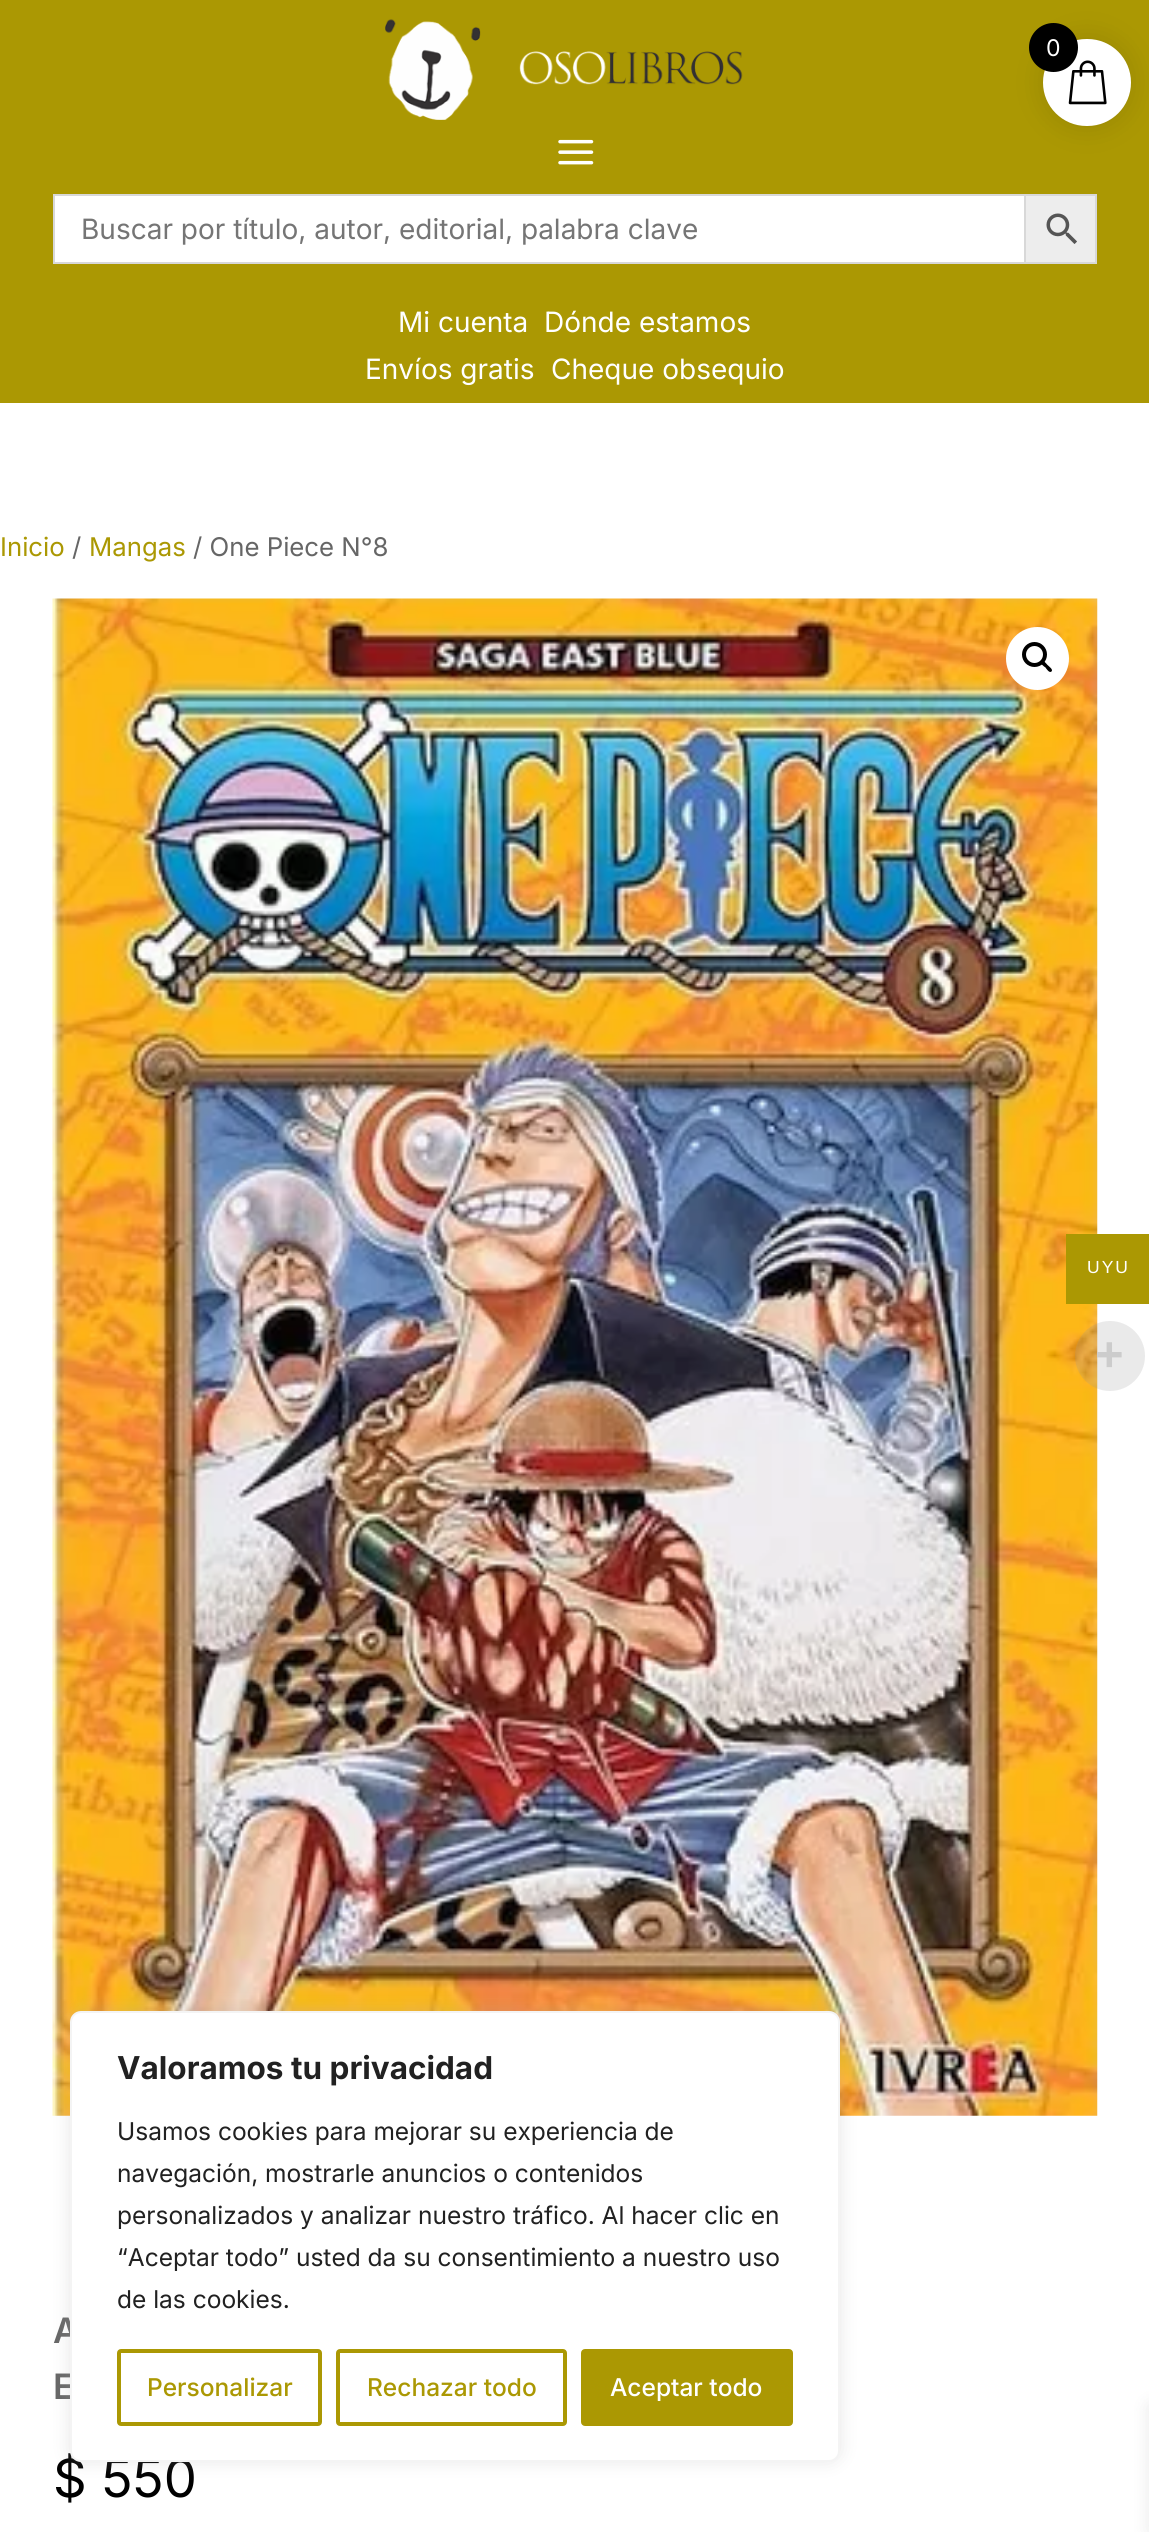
#include <cairo.h>
#include <math.h>
#include <stddef.h>

static cairo_t *ctx;

static void use_color(int r, int g, int b) {
    cairo_set_source_rgb(ctx, r / 255.0, g / 255.0, b / 255.0);
}

static void spaced_text(double x, double y, const char *s, double letter, double word) {
    cairo_move_to(ctx, x, y);
    while (*s) {
        char ch[5] = {0};
        int n = 0;
        do ch[n++] = *s++; while ((*s & 0xC0) == 0x80);
        cairo_show_text(ctx, ch);
        cairo_rel_move_to(ctx, letter + word * (*ch == ' '), 0);
    }
}

static void round_rect(double x, double y, double w, double h, double r) {
    cairo_new_sub_path(ctx);
    cairo_arc(ctx, x + w - r, y + h - r, r, 0, M_PI / 2);
    cairo_arc(ctx, x + r, y + h - r, r, M_PI / 2, M_PI);
    cairo_arc(ctx, x + r, y + r, r, M_PI, 1.5 * M_PI);
    cairo_arc(ctx, x + w - r, y + r, r, 1.5 * M_PI, 2 * M_PI);
    cairo_close_path(ctx);
}

static void shadow(double x, double y, double w, double h, double r, double blur, double alpha) {
    cairo_push_group_with_content(ctx, CAIRO_CONTENT_ALPHA);
    cairo_set_operator(ctx, CAIRO_OPERATOR_SOURCE);
    for (int i = 15; i >= -15 && fmin(w, h) + blur * i / 3 > 0; i -= 2) {
        double e = blur * i / 6;
        cairo_set_source_rgba(ctx, 0, 0, 0, alpha * erfc((i - 1) / 8.5) / 2);
        round_rect(x - e, y - e, w + 2 * e, h + 2 * e, fmax(0, fmin(r + e + blur * .6, fmin(w, h) / 2 + e)));
        cairo_fill(ctx);
    }
    cairo_pattern_t *soft = cairo_pop_group(ctx);
    cairo_mask(ctx, soft);
    cairo_pattern_destroy(soft);
}

static void picture(const char *path, double x, double y, double w, double h) {
    cairo_surface_t *image = cairo_image_surface_create_from_png(path);
    cairo_save(ctx);
    cairo_set_source_surface(ctx, image, x, y);
    cairo_rectangle(ctx, x, y, w, h);
    cairo_fill(ctx);
    cairo_restore(ctx);
    cairo_surface_destroy(image);
}

int main(void) {
    cairo_surface_t *surface = cairo_image_surface_create(CAIRO_FORMAT_RGB24, 1149, 2532);
    ctx = cairo_create(surface);
    cairo_font_options_t *options = cairo_font_options_create();
    cairo_font_options_set_hint_metrics(options, CAIRO_HINT_METRICS_OFF);
    cairo_font_options_set_hint_style(options, CAIRO_HINT_STYLE_NONE);
    cairo_set_font_options(ctx, options);
    cairo_set_miter_limit(ctx, 4);
    use_color(255, 255, 255);
    cairo_paint(ctx);
    use_color(171, 152, 3);
    cairo_rectangle(ctx, 0, 0, 1149, 403);
    cairo_fill(ctx);
    use_color(0, 0, 0);
    shadow(1040, 35, 94, 95, 47, 13, 0.1);
    use_color(255, 255, 255);
    round_rect(1043, 39, 88, 87, 43.5);
    cairo_fill(ctx);
    picture("img1.png", 1068, 60, 39, 45);
    use_color(0, 0, 0);
    cairo_arc(ctx, 1053.5, 47.5, 24.5, 0, 2 * M_PI);
    cairo_fill(ctx);
    cairo_select_font_face(ctx, "Inter", CAIRO_FONT_SLANT_NORMAL, CAIRO_FONT_WEIGHT_NORMAL);
    cairo_set_font_size(ctx, 23);
    use_color(255, 255, 255);
    cairo_move_to(ctx, 1046, 56);
    cairo_show_text(ctx, "0");
    use_color(0, 0, 0);
    shadow(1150, 2406, 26, 125, 0, 9, 0.1);
    picture("img2.png", 385, 19, 358, 101);
    picture("img3.png", 558, 139, 36, 26);
    use_color(255, 255, 255);
    cairo_rectangle(ctx, 55, 196, 969, 66);
    cairo_fill(ctx);
    use_color(237, 237, 237);
    cairo_rectangle(ctx, 1025, 195, 71, 68);
    cairo_fill_preserve(ctx);
    use_color(216, 216, 216);
    cairo_stroke(ctx);
    cairo_rectangle(ctx, 54, 195, 971, 68);
    cairo_stroke(ctx);
    cairo_set_font_size(ctx, 28);
    use_color(117, 117, 117);
    cairo_move_to(ctx, 81, 239);
    cairo_show_text(ctx, "Buscar por título, autor, editorial, palabra clave");
    picture("img4.png", 1046, 213, 31, 31);
    use_color(255, 255, 255);
    cairo_move_to(ctx, 398, 332);
    cairo_show_text(ctx, "Mi cuenta");
    cairo_move_to(ctx, 544, 332);
    cairo_show_text(ctx, "Dónde estamos");
    cairo_move_to(ctx, 365, 379);
    cairo_show_text(ctx, "Envíos gratis");
    cairo_move_to(ctx, 551, 379);
    cairo_show_text(ctx, "Cheque obsequio");
    cairo_set_font_size(ctx, 25.75);
    use_color(171, 152, 3);
    cairo_move_to(ctx, 0, 556);
    cairo_show_text(ctx, "Inicio");
    use_color(102, 102, 102);
    cairo_move_to(ctx, 72, 556);
    cairo_show_text(ctx, "/");
    use_color(171, 152, 3);
    cairo_move_to(ctx, 89, 556);
    cairo_show_text(ctx, "Mangas");
    use_color(102, 102, 102);
    cairo_move_to(ctx, 193, 556);
    cairo_show_text(ctx, "/ One Piece N°8");
    picture("img5.png", 52, 598, 1046, 1518);
    use_color(255, 255, 255);
    cairo_arc(ctx, 1037.5, 658.5, 31.5, 0, 2 * M_PI);
    cairo_fill(ctx);
    cairo_arc(ctx, 1034.5, 654.5, 10.5, 0, 2 * M_PI);
    use_color(0, 0, 0);
    cairo_set_line_width(ctx, 4);
    cairo_stroke(ctx);
    cairo_new_path(ctx);
    cairo_move_to(ctx, 1041.5, 661.5);
    cairo_curve_to(ctx, 1043.5, 659.5, 1046.5, 664, 1047.5, 665);
    cairo_curve_to(ctx, 1049, 666.5, 1053.5, 669.5, 1051.5, 671.5);
    cairo_curve_to(ctx, 1049.5, 673.5, 1046.5, 669, 1045.5, 667.5);
    cairo_curve_to(ctx, 1044, 666.5, 1039.5, 663.5, 1041.5, 661.5);
    cairo_close_path(ctx);
    cairo_fill(ctx);
    cairo_select_font_face(ctx, "Inter SemiBold", CAIRO_FONT_SLANT_NORMAL, CAIRO_FONT_WEIGHT_NORMAL);
    cairo_set_font_size(ctx, 35);
    use_color(102, 102, 102);
    cairo_move_to(ctx, 53, 2343);
    cairo_show_text(ctx, "A");
    cairo_move_to(ctx, 53, 2399);
    cairo_show_text(ctx, "E");
    cairo_select_font_face(ctx, "Inter", CAIRO_FONT_SLANT_NORMAL, CAIRO_FONT_WEIGHT_NORMAL);
    cairo_set_font_size(ctx, 52.5);
    use_color(0, 0, 0);
    cairo_move_to(ctx, 53, 2497);
    cairo_show_text(ctx, "$ 550");
    use_color(171, 152, 3);
    cairo_rectangle(ctx, 1066, 1234, 83, 70);
    cairo_fill(ctx);
    cairo_select_font_face(ctx, "Liberation Sans", CAIRO_FONT_SLANT_NORMAL, CAIRO_FONT_WEIGHT_NORMAL);
    cairo_set_font_size(ctx, 17.5);
    use_color(255, 255, 255);
    spaced_text(1087, 1273, "UYU", 2, 0);
    cairo_set_source_rgba(ctx, 0.6, 0.6, 0.6, 0.2);
    cairo_new_path(ctx);
    cairo_arc(ctx, 1110, 1356, 35, 0, 2 * M_PI);
    cairo_fill(ctx);
    cairo_select_font_face(ctx, "Liberation Sans", CAIRO_FONT_SLANT_NORMAL, CAIRO_FONT_WEIGHT_BOLD);
    cairo_set_font_size(ctx, 49);
    use_color(204, 204, 204);
    cairo_move_to(ctx, 1095, 1371);
    cairo_show_text(ctx, "+");
    use_color(172, 171, 171);
    shadow(70, 2009, 770, 452, 11, 9, 0.3);
    use_color(255, 255, 255);
    round_rect(71, 2012, 768, 449, 10);
    cairo_fill_preserve(ctx);
    use_color(244, 244, 244);
    cairo_set_line_width(ctx, 2);
    cairo_stroke(ctx);
    cairo_select_font_face(ctx, "Inter", CAIRO_FONT_SLANT_NORMAL, CAIRO_FONT_WEIGHT_BOLD);
    cairo_set_font_size(ctx, 31.5);
    use_color(33, 33, 33);
    cairo_move_to(ctx, 117, 2079);
    cairo_show_text(ctx, "Valoramos tu privacidad");
    cairo_select_font_face(ctx, "Inter", CAIRO_FONT_SLANT_NORMAL, CAIRO_FONT_WEIGHT_NORMAL);
    cairo_set_font_size(ctx, 24.5);
    cairo_move_to(ctx, 117, 2140);
    cairo_show_text(ctx, "Usamos cookies para mejorar su experiencia de");
    cairo_move_to(ctx, 117, 2182);
    cairo_show_text(ctx, "navegación, mostrarle anuncios o contenidos");
    cairo_move_to(ctx, 117, 2224);
    cairo_show_text(ctx, "personalizados y analizar nuestro tráfico. Al hacer clic en");
    cairo_move_to(ctx, 117, 2266);
    cairo_show_text(ctx, "“Aceptar todo” usted da su consentimiento a nuestro uso");
    cairo_move_to(ctx, 117, 2308);
    cairo_show_text(ctx, "de las cookies.");
    round_rect(119, 2351, 201, 73, 2);
    use_color(171, 152, 3);
    cairo_set_line_width(ctx, 4);
    cairo_stroke(ctx);
    cairo_select_font_face(ctx, "Inter Medium", CAIRO_FONT_SLANT_NORMAL, CAIRO_FONT_WEIGHT_NORMAL);
    cairo_move_to(ctx, 147, 2396);
    cairo_show_text(ctx, "Personalizar");
    round_rect(338, 2351, 227, 73, 2);
    cairo_stroke(ctx);
    cairo_move_to(ctx, 367, 2396);
    cairo_show_text(ctx, "Rechazar todo");
    round_rect(583, 2351, 208, 73, 2);
    cairo_fill_preserve(ctx);
    cairo_stroke(ctx);
    use_color(255, 255, 255);
    cairo_move_to(ctx, 610, 2396);
    cairo_show_text(ctx, "Aceptar todo");
    cairo_surface_write_to_png(surface, "result.png");
    cairo_font_options_destroy(options);
    cairo_destroy(ctx);
    cairo_surface_destroy(surface);
    return 0;
}
